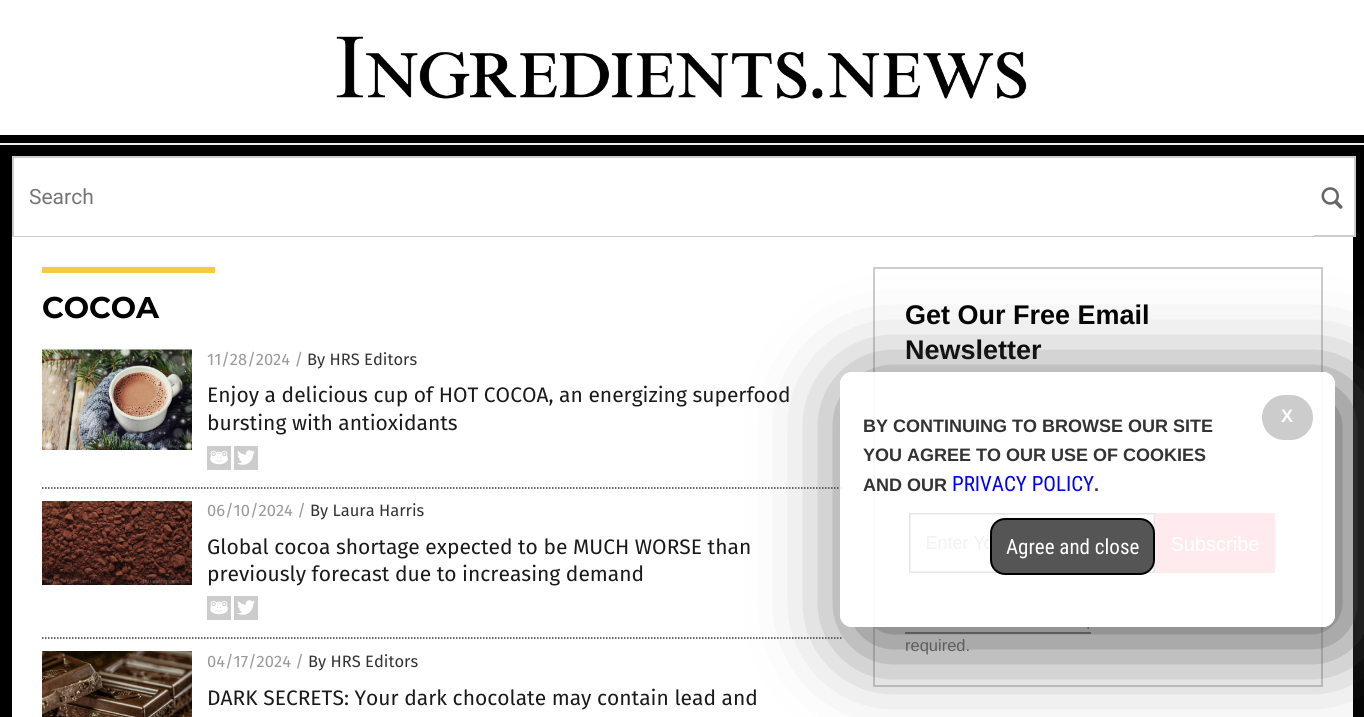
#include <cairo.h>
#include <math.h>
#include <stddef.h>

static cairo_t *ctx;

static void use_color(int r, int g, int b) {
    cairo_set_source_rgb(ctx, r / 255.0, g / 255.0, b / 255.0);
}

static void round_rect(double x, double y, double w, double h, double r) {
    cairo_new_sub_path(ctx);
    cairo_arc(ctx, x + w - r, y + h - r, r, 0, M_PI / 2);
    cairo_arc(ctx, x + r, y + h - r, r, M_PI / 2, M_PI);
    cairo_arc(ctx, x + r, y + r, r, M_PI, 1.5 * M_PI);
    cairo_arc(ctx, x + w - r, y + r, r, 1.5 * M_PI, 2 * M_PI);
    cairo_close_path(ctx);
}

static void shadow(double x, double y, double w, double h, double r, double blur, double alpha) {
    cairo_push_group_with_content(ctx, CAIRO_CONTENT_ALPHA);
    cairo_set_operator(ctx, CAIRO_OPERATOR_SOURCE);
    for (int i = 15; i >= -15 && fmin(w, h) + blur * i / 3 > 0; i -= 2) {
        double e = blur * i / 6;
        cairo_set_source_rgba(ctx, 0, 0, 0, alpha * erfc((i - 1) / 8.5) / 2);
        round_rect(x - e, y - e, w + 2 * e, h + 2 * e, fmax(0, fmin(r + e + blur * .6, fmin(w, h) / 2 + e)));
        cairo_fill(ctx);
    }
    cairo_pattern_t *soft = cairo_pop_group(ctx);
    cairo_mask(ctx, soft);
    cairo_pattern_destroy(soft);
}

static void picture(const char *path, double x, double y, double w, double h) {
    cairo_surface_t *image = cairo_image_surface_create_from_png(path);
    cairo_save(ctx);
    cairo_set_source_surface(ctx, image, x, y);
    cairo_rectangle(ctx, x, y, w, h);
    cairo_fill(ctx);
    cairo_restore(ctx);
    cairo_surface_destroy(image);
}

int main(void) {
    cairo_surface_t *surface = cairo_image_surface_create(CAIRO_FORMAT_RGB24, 1364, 717);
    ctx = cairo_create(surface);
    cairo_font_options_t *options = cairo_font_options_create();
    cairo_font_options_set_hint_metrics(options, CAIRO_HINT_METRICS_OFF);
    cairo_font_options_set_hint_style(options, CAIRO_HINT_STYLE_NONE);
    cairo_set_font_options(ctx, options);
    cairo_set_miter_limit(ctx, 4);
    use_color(0, 0, 0);
    cairo_paint(ctx);
    use_color(255, 255, 255);
    cairo_rectangle(ctx, 0, 0, 1364, 135);
    cairo_fill(ctx);
    picture("img1.png", 336, 36, 691, 63);
    use_color(236, 236, 236);
    cairo_rectangle(ctx, 0, 143, 1364, 2);
    cairo_fill(ctx);
    use_color(255, 255, 255);
    cairo_rectangle(ctx, 1314, 158, 40, 77);
    cairo_fill(ctx);
    cairo_rectangle(ctx, 13, 157, 1342, 79);
    use_color(204, 204, 204);
    cairo_stroke(ctx);
    use_color(255, 255, 255);
    cairo_rectangle(ctx, 14, 158, 1300, 78);
    cairo_fill(ctx);
    cairo_select_font_face(ctx, "Roboto", CAIRO_FONT_SLANT_NORMAL, CAIRO_FONT_WEIGHT_NORMAL);
    cairo_set_font_size(ctx, 21);
    use_color(117, 117, 117);
    cairo_move_to(ctx, 29, 204);
    cairo_show_text(ctx, "Search");
    picture("img2.png", 1321, 187, 22, 22);
    use_color(255, 255, 255);
    cairo_rectangle(ctx, 12, 237, 1341, 480);
    cairo_fill(ctx);
    use_color(245, 202, 69);
    cairo_rectangle(ctx, 42, 267, 173, 6);
    cairo_fill(ctx);
    cairo_select_font_face(ctx, "Montserrat", CAIRO_FONT_SLANT_NORMAL, CAIRO_FONT_WEIGHT_BOLD);
    cairo_set_font_size(ctx, 30);
    use_color(0, 0, 0);
    cairo_move_to(ctx, 42, 318);
    cairo_show_text(ctx, "COCOA");
    cairo_new_path(ctx);
    cairo_move_to(ctx, 42, 488);
    cairo_line_to(ctx, 843, 488);
    use_color(52, 52, 52);
    cairo_set_line_width(ctx, 1.5);
    cairo_set_dash(ctx, (double[]){1.5, 1.5}, 2, 0);
    cairo_stroke(ctx);
    picture("img3.png", 42, 349, 150, 101);
    cairo_select_font_face(ctx, "Fira Sans", CAIRO_FONT_SLANT_NORMAL, CAIRO_FONT_WEIGHT_NORMAL);
    cairo_set_font_size(ctx, 16.5);
    use_color(153, 153, 153);
    cairo_move_to(ctx, 207, 365);
    cairo_show_text(ctx, "11/28/2024 /");
    use_color(51, 51, 51);
    cairo_move_to(ctx, 307, 365);
    cairo_show_text(ctx, "By HRS Editors");
    cairo_set_font_size(ctx, 21);
    use_color(26, 26, 26);
    cairo_move_to(ctx, 207, 402);
    cairo_show_text(ctx, "Enjoy a delicious cup of HOT COCOA, an energizing superfood");
    cairo_move_to(ctx, 207, 430);
    cairo_show_text(ctx, "bursting with antioxidants");
    picture("img4.png", 207, 446, 24, 24);
    picture("img5.png", 234, 446, 24, 24);
    cairo_new_path(ctx);
    cairo_move_to(ctx, 42, 638);
    cairo_line_to(ctx, 843, 638);
    use_color(52, 52, 52);
    cairo_stroke(ctx);
    picture("img6.png", 42, 501, 150, 84);
    cairo_set_font_size(ctx, 16.5);
    use_color(153, 153, 153);
    cairo_move_to(ctx, 207, 516);
    cairo_show_text(ctx, "06/10/2024 /");
    use_color(51, 51, 51);
    cairo_move_to(ctx, 310, 516);
    cairo_show_text(ctx, "By Laura Harris");
    cairo_set_font_size(ctx, 21);
    use_color(26, 26, 26);
    cairo_move_to(ctx, 207, 554);
    cairo_show_text(ctx, "Global cocoa shortage expected to be MUCH WORSE than");
    cairo_move_to(ctx, 207, 581);
    cairo_show_text(ctx, "previously forecast due to increasing demand");
    picture("img4.png", 207, 596, 24, 24);
    picture("img5.png", 234, 596, 24, 24);
    picture("img7.png", 42, 651, 150, 66);
    cairo_set_font_size(ctx, 16.5);
    use_color(153, 153, 153);
    cairo_move_to(ctx, 207, 667);
    cairo_show_text(ctx, "04/17/2024 /");
    use_color(51, 51, 51);
    cairo_move_to(ctx, 308, 667);
    cairo_show_text(ctx, "By HRS Editors");
    cairo_set_font_size(ctx, 21);
    use_color(26, 26, 26);
    cairo_move_to(ctx, 207, 705);
    cairo_show_text(ctx, "DARK SECRETS: Your dark chocolate may contain lead and");
    cairo_rectangle(ctx, 874, 268, 448, 418);
    use_color(204, 204, 204);
    cairo_set_line_width(ctx, 2);
    cairo_set_dash(ctx, NULL, 0, 0);
    cairo_stroke(ctx);
    cairo_select_font_face(ctx, "Liberation Sans", CAIRO_FONT_SLANT_NORMAL, CAIRO_FONT_WEIGHT_BOLD);
    cairo_set_font_size(ctx, 27);
    use_color(0, 0, 0);
    cairo_move_to(ctx, 905, 324);
    cairo_show_text(ctx, "Get Our Free Email");
    cairo_move_to(ctx, 905, 359);
    cairo_show_text(ctx, "Newsletter");
    picture("img8.png", 909, 513, 366, 60);
    cairo_select_font_face(ctx, "Liberation Sans", CAIRO_FONT_SLANT_NORMAL, CAIRO_FONT_WEIGHT_NORMAL);
    cairo_set_font_size(ctx, 16.5);
    use_color(102, 102, 102);
    cairo_move_to(ctx, 1086, 629);
    cairo_show_text(ctx, ".");
    cairo_rectangle(ctx, 905, 632, 186, 2);
    cairo_fill(ctx);
    cairo_move_to(ctx, 905, 651);
    cairo_show_text(ctx, "required.");
    cairo_save(ctx);
    cairo_set_fill_rule(ctx, CAIRO_FILL_RULE_EVEN_ODD);
    cairo_new_path(ctx);
    cairo_move_to(ctx, 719, 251);
    cairo_line_to(ctx, 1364, 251);
    cairo_line_to(ctx, 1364, 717);
    cairo_line_to(ctx, 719, 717);
    cairo_close_path(ctx);
    cairo_move_to(ctx, 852, 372);
    cairo_line_to(ctx, 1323, 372);
    cairo_curve_to(ctx, 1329.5, 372, 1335, 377.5, 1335, 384);
    cairo_line_to(ctx, 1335, 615);
    cairo_curve_to(ctx, 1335, 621.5, 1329.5, 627, 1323, 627);
    cairo_line_to(ctx, 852, 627);
    cairo_curve_to(ctx, 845.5, 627, 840, 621.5, 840, 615);
    cairo_line_to(ctx, 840, 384);
    cairo_curve_to(ctx, 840, 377.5, 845.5, 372, 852, 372);
    cairo_close_path(ctx);
    cairo_clip(ctx);
    use_color(85, 85, 85);
    shadow(855, 387, 495, 255, 12, 45, 1);
    cairo_restore(ctx);
    cairo_set_source_rgba(ctx, 1, 1, 1, 0.9);
    round_rect(840, 372, 495, 255, 12);
    cairo_fill(ctx);
    use_color(204, 204, 204);
    round_rect(1262, 395, 51, 45, 22.5);
    cairo_fill(ctx);
    cairo_select_font_face(ctx, "Liberation Sans", CAIRO_FONT_SLANT_NORMAL, CAIRO_FONT_WEIGHT_BOLD);
    cairo_set_font_size(ctx, 18);
    use_color(255, 255, 255);
    cairo_move_to(ctx, 1281, 422);
    cairo_show_text(ctx, "X");
    use_color(51, 51, 51);
    cairo_move_to(ctx, 863, 432);
    cairo_show_text(ctx, "BY CONTINUING TO BROWSE OUR SITE");
    cairo_move_to(ctx, 863, 461);
    cairo_show_text(ctx, "YOU AGREE TO OUR USE OF COOKIES");
    cairo_move_to(ctx, 863, 491);
    cairo_show_text(ctx, "AND OUR");
    cairo_select_font_face(ctx, "Roboto Condensed", CAIRO_FONT_SLANT_NORMAL, CAIRO_FONT_WEIGHT_NORMAL);
    cairo_set_font_size(ctx, 21);
    use_color(0, 0, 255);
    cairo_move_to(ctx, 952, 491);
    cairo_show_text(ctx, "PRIVACY POLICY");
    cairo_select_font_face(ctx, "Liberation Sans", CAIRO_FONT_SLANT_NORMAL, CAIRO_FONT_WEIGHT_BOLD);
    cairo_set_font_size(ctx, 18);
    use_color(51, 51, 51);
    cairo_move_to(ctx, 1094, 491);
    cairo_show_text(ctx, ".");
    use_color(85, 85, 85);
    round_rect(991, 519, 163, 55, 14);
    cairo_fill_preserve(ctx);
    use_color(0, 0, 0);
    cairo_stroke(ctx);
    cairo_select_font_face(ctx, "Roboto Condensed", CAIRO_FONT_SLANT_NORMAL, CAIRO_FONT_WEIGHT_NORMAL);
    cairo_set_font_size(ctx, 21);
    use_color(255, 255, 255);
    cairo_move_to(ctx, 1006, 554);
    cairo_show_text(ctx, "Agree and close");
    cairo_surface_write_to_png(surface, "result.png");
    cairo_font_options_destroy(options);
    cairo_destroy(ctx);
    cairo_surface_destroy(surface);
    return 0;
}
